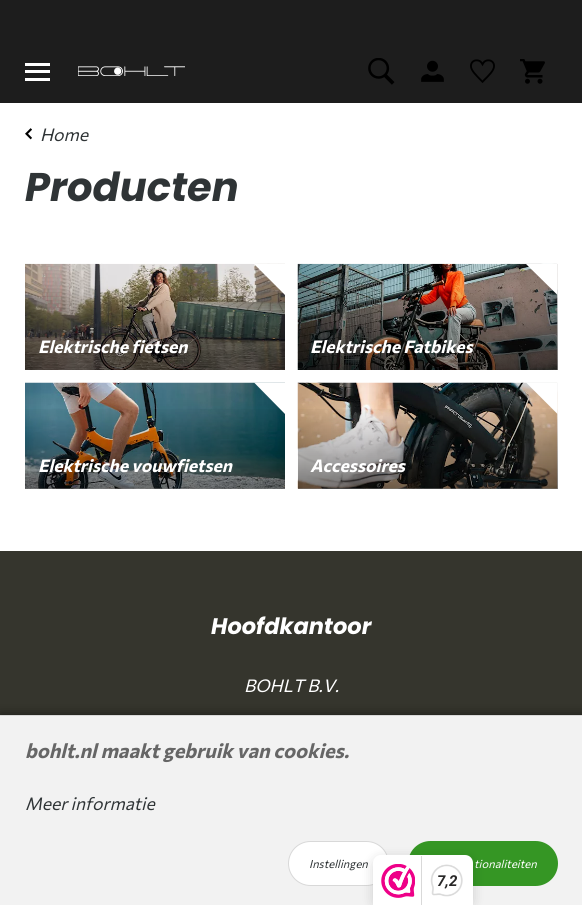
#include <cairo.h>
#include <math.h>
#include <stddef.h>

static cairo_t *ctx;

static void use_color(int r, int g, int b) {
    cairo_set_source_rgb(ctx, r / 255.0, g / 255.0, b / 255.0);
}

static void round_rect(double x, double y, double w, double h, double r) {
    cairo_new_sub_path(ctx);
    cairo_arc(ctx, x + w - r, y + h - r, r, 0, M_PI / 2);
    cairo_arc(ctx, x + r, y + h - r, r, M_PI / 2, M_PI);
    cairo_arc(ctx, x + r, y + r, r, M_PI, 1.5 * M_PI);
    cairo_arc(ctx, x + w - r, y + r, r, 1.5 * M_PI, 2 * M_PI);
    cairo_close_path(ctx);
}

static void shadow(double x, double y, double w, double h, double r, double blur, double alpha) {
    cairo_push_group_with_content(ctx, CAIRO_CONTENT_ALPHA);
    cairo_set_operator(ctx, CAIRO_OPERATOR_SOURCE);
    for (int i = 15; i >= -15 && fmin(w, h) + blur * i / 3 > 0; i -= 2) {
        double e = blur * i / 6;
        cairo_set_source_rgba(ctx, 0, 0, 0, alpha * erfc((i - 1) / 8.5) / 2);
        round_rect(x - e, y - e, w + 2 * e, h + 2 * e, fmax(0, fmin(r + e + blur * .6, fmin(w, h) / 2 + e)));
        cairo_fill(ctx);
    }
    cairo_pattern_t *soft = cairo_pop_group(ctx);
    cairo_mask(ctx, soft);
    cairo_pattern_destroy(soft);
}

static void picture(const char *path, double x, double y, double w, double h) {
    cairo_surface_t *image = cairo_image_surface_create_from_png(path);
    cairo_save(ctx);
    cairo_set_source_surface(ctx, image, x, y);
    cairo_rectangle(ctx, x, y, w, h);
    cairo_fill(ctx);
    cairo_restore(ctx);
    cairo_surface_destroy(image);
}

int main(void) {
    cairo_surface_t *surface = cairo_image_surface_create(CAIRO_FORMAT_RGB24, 582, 905);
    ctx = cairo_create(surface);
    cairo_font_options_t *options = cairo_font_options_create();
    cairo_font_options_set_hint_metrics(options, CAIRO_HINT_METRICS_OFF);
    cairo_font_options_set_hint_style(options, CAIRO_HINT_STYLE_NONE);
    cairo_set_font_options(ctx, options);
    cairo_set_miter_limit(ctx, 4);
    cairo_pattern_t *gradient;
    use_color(255, 255, 255);
    cairo_paint(ctx);
    use_color(29, 29, 29);
    cairo_rectangle(ctx, 0, 0, 582, 103);
    cairo_fill(ctx);
    use_color(255, 255, 255);
    cairo_rectangle(ctx, 25, 63, 25, 3);
    cairo_fill(ctx);
    cairo_rectangle(ctx, 25, 70, 25, 3);
    cairo_fill(ctx);
    cairo_rectangle(ctx, 25, 78, 25, 3);
    cairo_fill(ctx);
    picture("img1.png", 78, 66, 107, 10);
    picture("img2.png", 368, 58, 27, 27);
    picture("img3.png", 421, 60, 23, 22);
    picture("img4.png", 470, 59, 25, 24);
    picture("img5.png", 520, 59, 25, 25);
    picture("img6.png", 25, 128, 7, 12);
    cairo_select_font_face(ctx, "Commissioner", CAIRO_FONT_SLANT_ITALIC, CAIRO_FONT_WEIGHT_NORMAL);
    cairo_set_font_size(ctx, 17.5);
    use_color(47, 52, 54);
    cairo_move_to(ctx, 40, 141);
    cairo_show_text(ctx, "Home");
    cairo_select_font_face(ctx, "Poppins", CAIRO_FONT_SLANT_ITALIC, CAIRO_FONT_WEIGHT_BOLD);
    cairo_set_font_size(ctx, 40);
    cairo_move_to(ctx, 25, 201);
    cairo_show_text(ctx, "Producten");
    picture("img7.png", 25, 263, 260, 107);
    use_color(255, 255, 255);
    cairo_new_path(ctx);
    cairo_move_to(ctx, 285, 264);
    cairo_line_to(ctx, 285, 295);
    cairo_line_to(ctx, 254, 264);
    cairo_close_path(ctx);
    cairo_fill(ctx);
    cairo_select_font_face(ctx, "Commissioner", CAIRO_FONT_SLANT_ITALIC, CAIRO_FONT_WEIGHT_BOLD);
    cairo_set_font_size(ctx, 17.5);
    cairo_move_to(ctx, 38, 353);
    cairo_show_text(ctx, "Elektrische fietsen");
    picture("img8.png", 297, 263, 261, 107);
    gradient = cairo_pattern_create_linear(428, 286, 428, 370);
    cairo_pattern_add_color_stop_rgba(gradient, 0, 0, 0, 0, 0);
    cairo_pattern_add_color_stop_rgba(gradient, 1, 0, 0, 0, 0.5);
    cairo_set_source(ctx, gradient);
    cairo_pattern_destroy(gradient);
    cairo_rectangle(ctx, 298, 290, 260, 80);
    cairo_fill(ctx);
    use_color(255, 255, 255);
    cairo_new_path(ctx);
    cairo_move_to(ctx, 557.5, 264);
    cairo_line_to(ctx, 557.5, 295);
    cairo_line_to(ctx, 526, 264);
    cairo_close_path(ctx);
    cairo_fill(ctx);
    cairo_move_to(ctx, 310, 353);
    cairo_show_text(ctx, "Elektrische Fatbikes");
    picture("img9.png", 25, 382, 260, 107);
    gradient = cairo_pattern_create_linear(155, 405, 155, 489);
    cairo_pattern_add_color_stop_rgba(gradient, 0, 0, 0, 0, 0);
    cairo_pattern_add_color_stop_rgba(gradient, 1, 0, 0, 0, 0.5);
    cairo_set_source(ctx, gradient);
    cairo_pattern_destroy(gradient);
    cairo_rectangle(ctx, 25, 409, 260, 80);
    cairo_fill(ctx);
    use_color(255, 255, 255);
    cairo_new_path(ctx);
    cairo_move_to(ctx, 285, 382.5);
    cairo_line_to(ctx, 285, 414);
    cairo_line_to(ctx, 254, 382.5);
    cairo_close_path(ctx);
    cairo_fill(ctx);
    cairo_move_to(ctx, 38, 472);
    cairo_show_text(ctx, "Elektrische vouwfietsen");
    picture("img10.png", 297, 382, 261, 107);
    gradient = cairo_pattern_create_linear(428, 405, 428, 489);
    cairo_pattern_add_color_stop_rgba(gradient, 0, 0, 0, 0, 0);
    cairo_pattern_add_color_stop_rgba(gradient, 1, 0, 0, 0, 0.5);
    cairo_set_source(ctx, gradient);
    cairo_pattern_destroy(gradient);
    cairo_rectangle(ctx, 298, 409, 260, 80);
    cairo_fill(ctx);
    use_color(255, 255, 255);
    cairo_new_path(ctx);
    cairo_move_to(ctx, 557.5, 382.5);
    cairo_line_to(ctx, 557.5, 414);
    cairo_line_to(ctx, 526, 382.5);
    cairo_close_path(ctx);
    cairo_fill(ctx);
    cairo_move_to(ctx, 310, 472);
    cairo_show_text(ctx, "Accessoires");
    use_color(53, 53, 45);
    cairo_rectangle(ctx, 0, 551, 582, 164);
    cairo_fill(ctx);
    cairo_select_font_face(ctx, "Poppins", CAIRO_FONT_SLANT_ITALIC, CAIRO_FONT_WEIGHT_BOLD);
    cairo_set_font_size(ctx, 22.5);
    use_color(255, 255, 255);
    cairo_move_to(ctx, 211, 634);
    cairo_show_text(ctx, "Hoofdkantoor");
    cairo_select_font_face(ctx, "Commissioner", CAIRO_FONT_SLANT_ITALIC, CAIRO_FONT_WEIGHT_NORMAL);
    cairo_set_font_size(ctx, 17.5);
    cairo_move_to(ctx, 244, 692);
    cairo_show_text(ctx, "BOHLT B.V.");
    use_color(0, 0, 0);
    shadow(0, 715, 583, 190, 0, 6, 0.5);
    use_color(242, 242, 242);
    cairo_rectangle(ctx, 0, 716, 582, 189);
    cairo_fill(ctx);
    use_color(216, 216, 216);
    cairo_rectangle(ctx, 0, 715, 582, 1);
    cairo_fill(ctx);
    cairo_select_font_face(ctx, "Commissioner", CAIRO_FONT_SLANT_ITALIC, CAIRO_FONT_WEIGHT_BOLD);
    cairo_set_font_size(ctx, 20);
    use_color(102, 102, 102);
    cairo_move_to(ctx, 25, 758);
    cairo_show_text(ctx, "bohlt.nl maakt gebruik van cookies.");
    cairo_select_font_face(ctx, "Commissioner", CAIRO_FONT_SLANT_ITALIC, CAIRO_FONT_WEIGHT_NORMAL);
    cairo_set_font_size(ctx, 17.5);
    use_color(47, 52, 54);
    cairo_move_to(ctx, 25, 810);
    cairo_show_text(ctx, "Meer informatie");
    use_color(255, 255, 255);
    round_rect(288.5, 841.5, 100, 44, 22);
    cairo_fill_preserve(ctx);
    use_color(216, 216, 216);
    cairo_set_line_width(ctx, 1);
    cairo_stroke(ctx);
    cairo_set_font_size(ctx, 11.25);
    use_color(47, 52, 54);
    cairo_move_to(ctx, 309, 868);
    cairo_show_text(ctx, "Instellingen");
    use_color(53, 150, 36);
    round_rect(408, 841, 150, 45, 22.5);
    cairo_fill(ctx);
    use_color(255, 255, 255);
    cairo_move_to(ctx, 474, 868);
    cairo_show_text(ctx, "tionaliteiten");
    use_color(0, 0, 0);
    shadow(373, 858, 100, 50, 8, 6, 0.15);
    use_color(255, 255, 255);
    cairo_new_path(ctx);
    cairo_move_to(ctx, 381, 855);
    cairo_line_to(ctx, 465, 855);
    cairo_curve_to(ctx, 469.5, 855, 473, 858.5, 473, 863);
    cairo_line_to(ctx, 473, 905);
    cairo_line_to(ctx, 373, 905);
    cairo_line_to(ctx, 373, 863);
    cairo_curve_to(ctx, 373, 858.5, 376.5, 855, 381, 855);
    cairo_close_path(ctx);
    cairo_fill(ctx);
    picture("img11.png", 381, 864, 34, 34);
    use_color(217, 217, 217);
    cairo_rectangle(ctx, 421, 856, 1, 49);
    cairo_fill(ctx);
    picture("img12.png", 430, 864, 33, 33);
    cairo_select_font_face(ctx, "Roboto", CAIRO_FONT_SLANT_ITALIC, CAIRO_FONT_WEIGHT_BOLD);
    cairo_set_font_size(ctx, 15);
    use_color(39, 38, 38);
    cairo_move_to(ctx, 437, 886);
    cairo_show_text(ctx, "7,2");
    cairo_surface_write_to_png(surface, "result.png");
    cairo_font_options_destroy(options);
    cairo_destroy(ctx);
    cairo_surface_destroy(surface);
    return 0;
}
